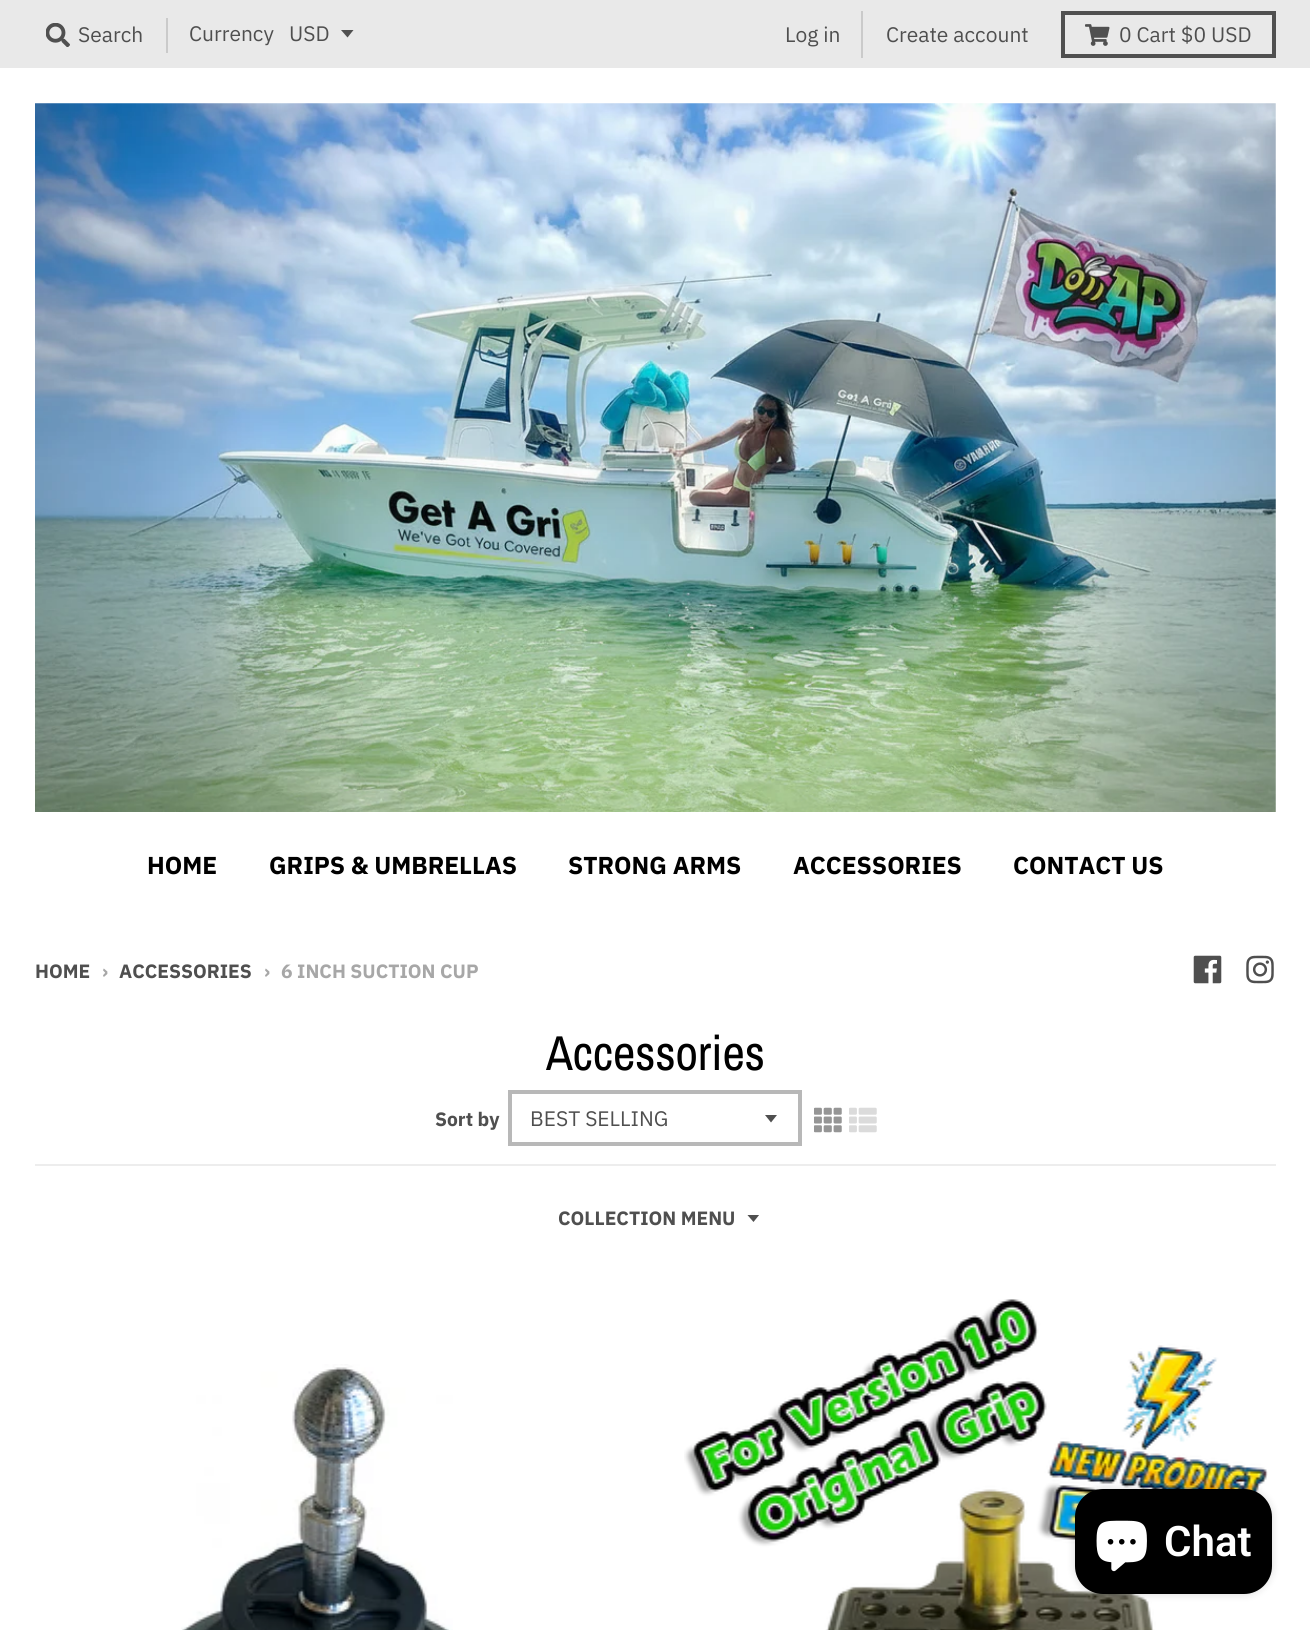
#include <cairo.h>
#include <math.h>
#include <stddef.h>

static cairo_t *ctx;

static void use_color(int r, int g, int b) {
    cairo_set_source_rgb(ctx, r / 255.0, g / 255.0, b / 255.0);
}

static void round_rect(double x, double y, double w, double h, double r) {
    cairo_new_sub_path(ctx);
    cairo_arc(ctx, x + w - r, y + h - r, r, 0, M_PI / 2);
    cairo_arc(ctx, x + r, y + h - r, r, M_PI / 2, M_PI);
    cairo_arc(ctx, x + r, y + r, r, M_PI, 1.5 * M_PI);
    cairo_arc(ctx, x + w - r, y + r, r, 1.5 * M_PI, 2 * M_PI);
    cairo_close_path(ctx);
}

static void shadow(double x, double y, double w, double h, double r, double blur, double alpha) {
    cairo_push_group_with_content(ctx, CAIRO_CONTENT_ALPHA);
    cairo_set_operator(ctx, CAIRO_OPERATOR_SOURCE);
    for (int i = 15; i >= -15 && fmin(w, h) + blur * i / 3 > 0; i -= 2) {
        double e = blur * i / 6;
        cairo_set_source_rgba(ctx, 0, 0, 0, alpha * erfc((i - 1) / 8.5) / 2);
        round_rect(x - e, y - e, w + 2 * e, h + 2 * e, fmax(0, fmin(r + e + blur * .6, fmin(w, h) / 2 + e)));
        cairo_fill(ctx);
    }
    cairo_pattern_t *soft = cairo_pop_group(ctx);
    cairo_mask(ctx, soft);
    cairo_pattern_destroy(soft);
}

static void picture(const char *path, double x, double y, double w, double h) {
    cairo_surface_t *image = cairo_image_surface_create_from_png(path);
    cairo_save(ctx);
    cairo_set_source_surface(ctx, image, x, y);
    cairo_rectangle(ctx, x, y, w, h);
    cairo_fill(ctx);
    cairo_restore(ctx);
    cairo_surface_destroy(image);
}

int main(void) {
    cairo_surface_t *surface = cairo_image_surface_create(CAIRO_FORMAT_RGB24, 1310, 1630);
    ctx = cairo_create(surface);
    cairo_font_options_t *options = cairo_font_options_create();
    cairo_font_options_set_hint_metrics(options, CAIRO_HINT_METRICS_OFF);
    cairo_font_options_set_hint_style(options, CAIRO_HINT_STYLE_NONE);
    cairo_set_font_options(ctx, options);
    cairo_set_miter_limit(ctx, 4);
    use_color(255, 255, 255);
    cairo_paint(ctx);
    use_color(233, 233, 233);
    cairo_rectangle(ctx, 0, 0, 1310, 68);
    cairo_fill(ctx);
    picture("img1.png", 46, 23, 24, 24);
    cairo_select_font_face(ctx, "IBM Plex Sans", CAIRO_FONT_SLANT_NORMAL, CAIRO_FONT_WEIGHT_NORMAL);
    cairo_set_font_size(ctx, 21);
    use_color(79, 79, 79);
    cairo_move_to(ctx, 78, 42);
    cairo_show_text(ctx, "Search");
    use_color(202, 202, 202);
    cairo_rectangle(ctx, 166, 18, 2, 35);
    cairo_fill(ctx);
    use_color(79, 79, 79);
    cairo_move_to(ctx, 189, 41);
    cairo_show_text(ctx, "Currency");
    use_color(80, 80, 80);
    cairo_new_path(ctx);
    cairo_move_to(ctx, 341, 30);
    cairo_line_to(ctx, 347.5, 37.5);
    cairo_line_to(ctx, 353.5, 30);
    cairo_close_path(ctx);
    cairo_fill(ctx);
    use_color(79, 79, 79);
    cairo_move_to(ctx, 289, 41);
    cairo_show_text(ctx, "USD");
    use_color(202, 202, 202);
    cairo_rectangle(ctx, 861, 11, 2, 47);
    cairo_fill(ctx);
    use_color(79, 79, 79);
    cairo_move_to(ctx, 785, 42);
    cairo_show_text(ctx, "Log in");
    cairo_move_to(ctx, 886, 42);
    cairo_show_text(ctx, "Create account");
    cairo_rectangle(ctx, 1063, 13, 211, 43);
    use_color(80, 80, 80);
    cairo_set_line_width(ctx, 4);
    cairo_stroke(ctx);
    picture("img2.png", 1085, 24, 25, 22);
    use_color(79, 79, 79);
    cairo_move_to(ctx, 1119, 42);
    cairo_show_text(ctx, "0 Cart $0 USD");
    picture("img3.png", 35, 103, 1241, 709);
    cairo_select_font_face(ctx, "IBM Plex Sans", CAIRO_FONT_SLANT_NORMAL, CAIRO_FONT_WEIGHT_BOLD);
    cairo_set_font_size(ctx, 24.5);
    use_color(0, 0, 0);
    cairo_move_to(ctx, 147, 874);
    cairo_show_text(ctx, "HOME");
    cairo_move_to(ctx, 269, 874);
    cairo_show_text(ctx, "GRIPS & UMBRELLAS");
    cairo_move_to(ctx, 568, 874);
    cairo_show_text(ctx, "STRONG ARMS");
    cairo_move_to(ctx, 793, 874);
    cairo_show_text(ctx, "ACCESSORIES");
    cairo_move_to(ctx, 1013, 874);
    cairo_show_text(ctx, "CONTACT US");
    cairo_set_font_size(ctx, 19.25);
    use_color(79, 79, 79);
    cairo_move_to(ctx, 35, 978);
    cairo_show_text(ctx, "HOME");
    use_color(167, 167, 167);
    cairo_move_to(ctx, 102, 978);
    cairo_show_text(ctx, "›");
    use_color(79, 79, 79);
    cairo_move_to(ctx, 119, 978);
    cairo_show_text(ctx, "ACCESSORIES");
    use_color(167, 167, 167);
    cairo_move_to(ctx, 264, 978);
    cairo_show_text(ctx, "›");
    cairo_move_to(ctx, 281, 978);
    cairo_show_text(ctx, "6 INCH SUCTION CUP");
    picture("img4.png", 1193, 955, 29, 29);
    picture("img5.png", 1246, 955, 28, 29);
    use_color(237, 237, 237);
    cairo_rectangle(ctx, 35, 1164, 1241, 2);
    cairo_fill(ctx);
    cairo_select_font_face(ctx, "Archivo Narrow", CAIRO_FONT_SLANT_NORMAL, CAIRO_FONT_WEIGHT_NORMAL);
    cairo_set_font_size(ctx, 49);
    use_color(0, 0, 0);
    cairo_move_to(ctx, 546, 1070);
    cairo_show_text(ctx, "Accessories");
    cairo_select_font_face(ctx, "IBM Plex Sans", CAIRO_FONT_SLANT_NORMAL, CAIRO_FONT_WEIGHT_BOLD);
    cairo_set_font_size(ctx, 19.25);
    use_color(79, 79, 79);
    cairo_move_to(ctx, 435, 1126);
    cairo_show_text(ctx, "Sort by");
    cairo_new_path(ctx);
    cairo_move_to(ctx, 765, 1115);
    cairo_line_to(ctx, 771, 1122.5);
    cairo_line_to(ctx, 777, 1115);
    cairo_close_path(ctx);
    cairo_fill(ctx);
    cairo_rectangle(ctx, 510, 1092, 290, 52);
    use_color(184, 184, 184);
    cairo_stroke(ctx);
    cairo_select_font_face(ctx, "IBM Plex Sans", CAIRO_FONT_SLANT_NORMAL, CAIRO_FONT_WEIGHT_NORMAL);
    cairo_set_font_size(ctx, 21);
    use_color(79, 79, 79);
    cairo_move_to(ctx, 530, 1126);
    cairo_show_text(ctx, "BEST SELLING");
    picture("img6.png", 814, 1107, 28, 26);
    picture("img7.png", 849, 1107, 28, 26);
    cairo_select_font_face(ctx, "IBM Plex Sans", CAIRO_FONT_SLANT_NORMAL, CAIRO_FONT_WEIGHT_BOLD);
    cairo_set_font_size(ctx, 19.25);
    cairo_move_to(ctx, 558, 1225);
    cairo_show_text(ctx, "COLLECTION MENU");
    cairo_save(ctx);
    cairo_rectangle(ctx, 747, 1215, 14, 8);
    cairo_clip(ctx);
    cairo_new_path(ctx);
    cairo_move_to(ctx, 747, 1214.5);
    cairo_line_to(ctx, 753.5, 1222);
    cairo_line_to(ctx, 759.5, 1214.5);
    cairo_close_path(ctx);
    cairo_fill(ctx);
    cairo_restore(ctx);
    picture("img8.png", 181, 1364, 272, 266);
    picture("img9.png", 684, 1299, 584, 331);
    use_color(0, 0, 0);
    shadow(1075, 1489, 197, 105, 28, 4.5, 0.15);
    use_color(0, 0, 0);
    round_rect(1075, 1489, 197, 105, 28);
    cairo_fill(ctx);
    picture("img10.png", 1096, 1520, 51, 52);
    cairo_select_font_face(ctx, "Roboto SemiBold", CAIRO_FONT_SLANT_NORMAL, CAIRO_FONT_WEIGHT_NORMAL);
    cairo_set_font_size(ctx, 42);
    use_color(255, 255, 255);
    cairo_move_to(ctx, 1164, 1556);
    cairo_show_text(ctx, "Chat");
    cairo_surface_write_to_png(surface, "result.png");
    cairo_font_options_destroy(options);
    cairo_destroy(ctx);
    cairo_surface_destroy(surface);
    return 0;
}
